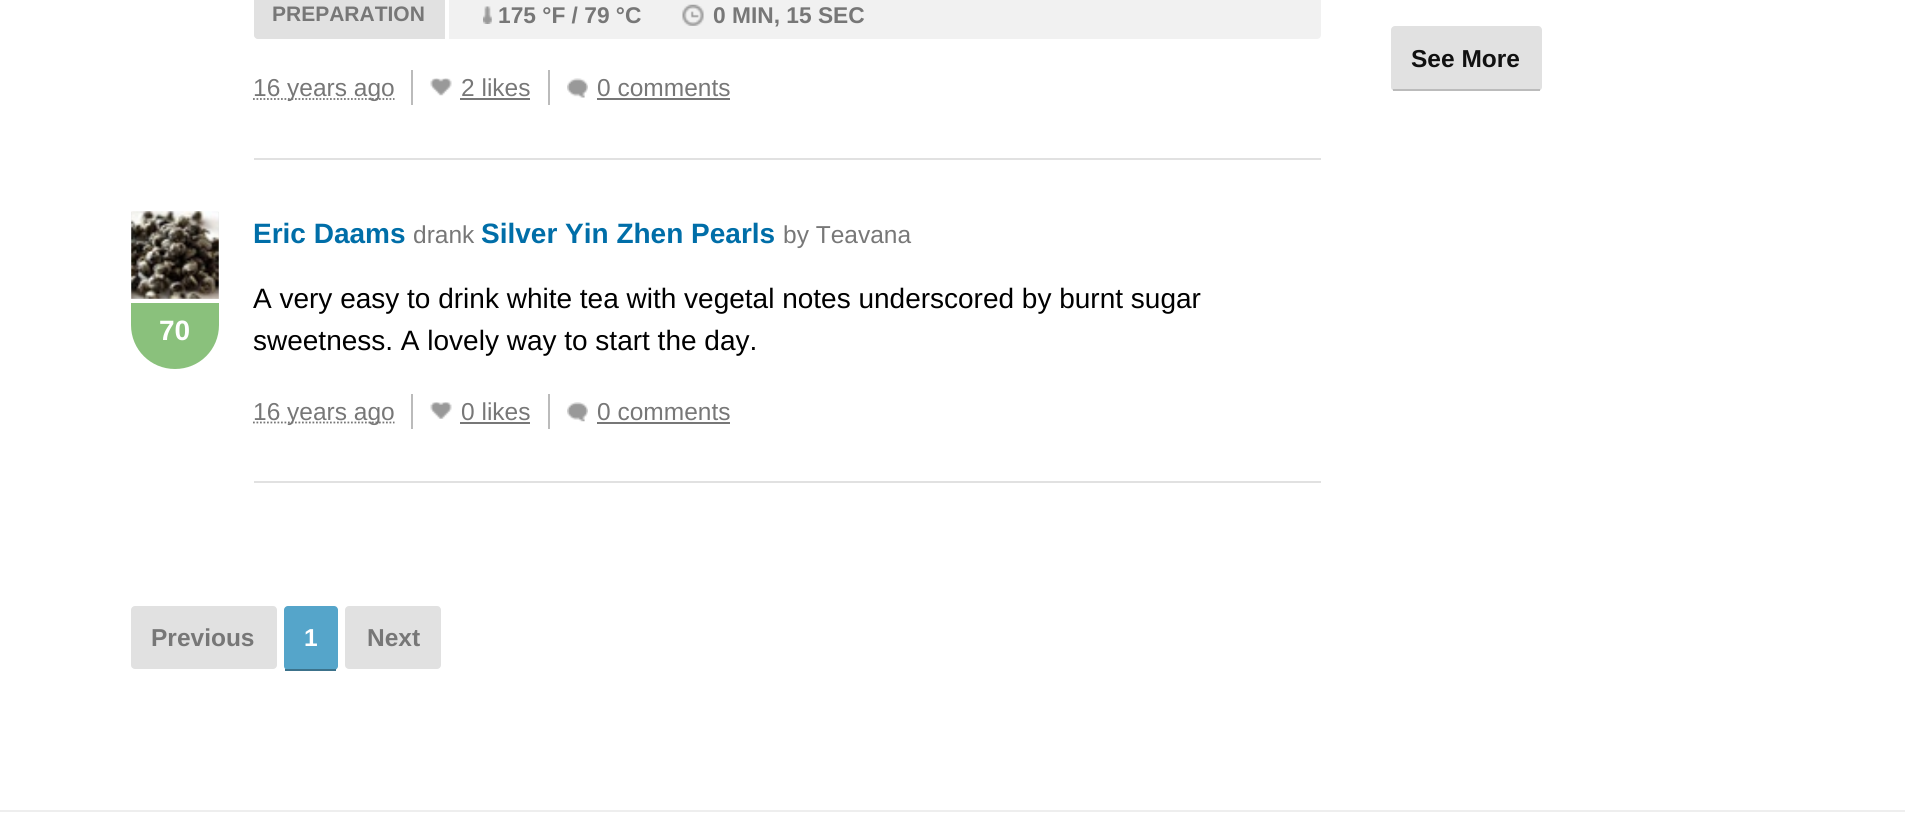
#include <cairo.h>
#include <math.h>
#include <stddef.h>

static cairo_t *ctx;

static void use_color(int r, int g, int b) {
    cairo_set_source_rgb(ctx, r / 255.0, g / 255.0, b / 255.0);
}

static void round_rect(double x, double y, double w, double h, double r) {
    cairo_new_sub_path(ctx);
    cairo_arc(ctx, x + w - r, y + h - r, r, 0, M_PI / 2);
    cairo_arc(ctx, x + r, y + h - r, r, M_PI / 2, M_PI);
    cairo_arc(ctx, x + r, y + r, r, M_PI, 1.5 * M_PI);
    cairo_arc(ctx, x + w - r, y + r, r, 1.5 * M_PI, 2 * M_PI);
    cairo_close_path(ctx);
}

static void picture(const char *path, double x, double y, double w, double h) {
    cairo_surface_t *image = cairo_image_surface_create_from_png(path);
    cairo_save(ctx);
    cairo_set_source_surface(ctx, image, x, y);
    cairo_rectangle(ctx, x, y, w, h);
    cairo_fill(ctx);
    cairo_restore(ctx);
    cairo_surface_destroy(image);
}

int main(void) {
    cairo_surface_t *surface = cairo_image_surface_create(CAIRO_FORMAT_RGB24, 1905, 826);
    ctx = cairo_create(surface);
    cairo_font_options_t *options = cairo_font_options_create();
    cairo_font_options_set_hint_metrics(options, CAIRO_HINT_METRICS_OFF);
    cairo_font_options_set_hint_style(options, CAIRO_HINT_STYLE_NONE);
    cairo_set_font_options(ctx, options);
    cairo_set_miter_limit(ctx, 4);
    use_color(255, 255, 255);
    cairo_paint(ctx);
    use_color(225, 225, 225);
    cairo_rectangle(ctx, 254, 158, 1067, 2);
    cairo_fill(ctx);
    use_color(241, 241, 241);
    round_rect(254, -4, 1067, 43, 4);
    cairo_fill(ctx);
    use_color(225, 225, 225);
    cairo_new_path(ctx);
    cairo_move_to(ctx, 258, -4);
    cairo_line_to(ctx, 448, -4);
    cairo_line_to(ctx, 448, 39);
    cairo_line_to(ctx, 258, 39);
    cairo_curve_to(ctx, 256, 39, 254, 37, 254, 35);
    cairo_line_to(ctx, 254, 0);
    cairo_curve_to(ctx, 254, -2, 256, -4, 258, -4);
    cairo_close_path(ctx);
    cairo_fill(ctx);
    use_color(255, 255, 255);
    cairo_rectangle(ctx, 445, 0, 4, 39);
    cairo_fill(ctx);
    cairo_select_font_face(ctx, "Liberation Sans", CAIRO_FONT_SLANT_NORMAL, CAIRO_FONT_WEIGHT_BOLD);
    cairo_set_font_size(ctx, 21);
    use_color(119, 119, 119);
    cairo_move_to(ctx, 272, 21);
    cairo_show_text(ctx, "PREPARATION");
    picture("img1.png", 483, 6, 9, 18);
    cairo_set_font_size(ctx, 22.75);
    cairo_move_to(ctx, 498, 23);
    cairo_show_text(ctx, "175 °F / 79 °C");
    picture("img2.png", 682, 4, 22, 22);
    cairo_move_to(ctx, 713, 23);
    cairo_show_text(ctx, "0 MIN, 15 SEC");
    use_color(187, 187, 187);
    cairo_rectangle(ctx, 411, 70, 2, 35);
    cairo_fill(ctx);
    cairo_new_path(ctx);
    cairo_move_to(ctx, 253, 99);
    cairo_line_to(ctx, 394.5, 99);
    use_color(119, 119, 119);
    cairo_set_line_width(ctx, 1.8);
    cairo_set_dash(ctx, (double[]){1.75, 1.75}, 2, 0);
    cairo_stroke(ctx);
    cairo_select_font_face(ctx, "Liberation Sans", CAIRO_FONT_SLANT_NORMAL, CAIRO_FONT_WEIGHT_NORMAL);
    cairo_set_font_size(ctx, 24.5);
    cairo_move_to(ctx, 253, 96);
    cairo_show_text(ctx, "16 years ago");
    picture("img3.png", 430, 78, 22, 18);
    use_color(187, 187, 187);
    cairo_rectangle(ctx, 548, 70, 2, 35);
    cairo_fill(ctx);
    use_color(119, 119, 119);
    cairo_move_to(ctx, 461, 96);
    cairo_show_text(ctx, "2 likes");
    cairo_rectangle(ctx, 460, 98, 70, 2);
    cairo_fill(ctx);
    picture("img4.png", 567, 78, 21, 20);
    cairo_move_to(ctx, 597, 96);
    cairo_show_text(ctx, "0 comments");
    cairo_rectangle(ctx, 597, 98, 133, 2);
    cairo_fill(ctx);
    cairo_select_font_face(ctx, "Liberation Sans", CAIRO_FONT_SLANT_NORMAL, CAIRO_FONT_WEIGHT_BOLD);
    cairo_set_font_size(ctx, 28);
    use_color(0, 110, 168);
    cairo_move_to(ctx, 253, 243);
    cairo_show_text(ctx, "Eric Daams");
    cairo_select_font_face(ctx, "Liberation Sans", CAIRO_FONT_SLANT_NORMAL, CAIRO_FONT_WEIGHT_NORMAL);
    cairo_set_font_size(ctx, 24.5);
    use_color(119, 119, 119);
    cairo_move_to(ctx, 413, 243);
    cairo_show_text(ctx, "drank");
    cairo_select_font_face(ctx, "Liberation Sans", CAIRO_FONT_SLANT_NORMAL, CAIRO_FONT_WEIGHT_BOLD);
    cairo_set_font_size(ctx, 28);
    use_color(0, 110, 168);
    cairo_move_to(ctx, 481, 243);
    cairo_show_text(ctx, "Silver Yin Zhen Pearls");
    cairo_select_font_face(ctx, "Liberation Sans", CAIRO_FONT_SLANT_NORMAL, CAIRO_FONT_WEIGHT_NORMAL);
    cairo_set_font_size(ctx, 24.5);
    use_color(119, 119, 119);
    cairo_move_to(ctx, 783, 243);
    cairo_show_text(ctx, "by Teavana");
    use_color(138, 193, 124);
    cairo_new_path(ctx);
    cairo_move_to(ctx, 131, 273);
    cairo_line_to(ctx, 219, 273);
    cairo_line_to(ctx, 219, 325);
    cairo_curve_to(ctx, 219, 349.5, 199.5, 369, 175, 369);
    cairo_curve_to(ctx, 150.5, 369, 131, 349.5, 131, 325);
    cairo_close_path(ctx);
    cairo_fill(ctx);
    cairo_rectangle(ctx, 130, 210, 90, 91);
    use_color(255, 255, 255);
    cairo_set_line_width(ctx, 4);
    cairo_set_dash(ctx, NULL, 0, 0);
    cairo_stroke(ctx);
    use_color(225, 225, 225);
    cairo_rectangle(ctx, 131, 212, 88, 87);
    cairo_fill(ctx);
    picture("img5.png", 131, 211, 88, 88);
    cairo_select_font_face(ctx, "Liberation Sans", CAIRO_FONT_SLANT_NORMAL, CAIRO_FONT_WEIGHT_BOLD);
    cairo_set_font_size(ctx, 28);
    use_color(255, 255, 255);
    cairo_move_to(ctx, 159, 340);
    cairo_show_text(ctx, "70");
    use_color(225, 225, 225);
    cairo_rectangle(ctx, 254, 481, 1067, 2);
    cairo_fill(ctx);
    cairo_select_font_face(ctx, "Liberation Sans", CAIRO_FONT_SLANT_NORMAL, CAIRO_FONT_WEIGHT_NORMAL);
    use_color(0, 0, 0);
    cairo_move_to(ctx, 253, 308);
    cairo_show_text(ctx, "A very easy to drink white tea with vegetal notes underscored by burnt sugar");
    cairo_move_to(ctx, 253, 350);
    cairo_show_text(ctx, "sweetness. A lovely way to start the day.");
    use_color(187, 187, 187);
    cairo_rectangle(ctx, 411, 394, 2, 35);
    cairo_fill(ctx);
    cairo_new_path(ctx);
    cairo_move_to(ctx, 253, 422.5);
    cairo_line_to(ctx, 394.5, 422.5);
    use_color(119, 119, 119);
    cairo_set_line_width(ctx, 1.8);
    cairo_set_dash(ctx, (double[]){1.75, 1.75}, 2, 0);
    cairo_stroke(ctx);
    cairo_set_font_size(ctx, 24.5);
    cairo_move_to(ctx, 253, 420);
    cairo_show_text(ctx, "16 years ago");
    picture("img6.png", 430, 402, 22, 17);
    use_color(187, 187, 187);
    cairo_rectangle(ctx, 548, 394, 2, 35);
    cairo_fill(ctx);
    use_color(119, 119, 119);
    cairo_move_to(ctx, 461, 420);
    cairo_show_text(ctx, "0 likes");
    cairo_rectangle(ctx, 460, 422, 70, 2);
    cairo_fill(ctx);
    picture("img7.png", 567, 402, 21, 20);
    cairo_move_to(ctx, 597, 420);
    cairo_show_text(ctx, "0 comments");
    cairo_rectangle(ctx, 597, 422, 133, 2);
    cairo_fill(ctx);
    use_color(225, 225, 225);
    round_rect(131, 606, 146, 63, 4);
    cairo_fill(ctx);
    cairo_select_font_face(ctx, "Liberation Sans", CAIRO_FONT_SLANT_NORMAL, CAIRO_FONT_WEIGHT_BOLD);
    use_color(119, 119, 119);
    cairo_move_to(ctx, 151, 646);
    cairo_show_text(ctx, "Previous");
    use_color(85, 165, 202);
    round_rect(284, 606, 54, 64, 4);
    cairo_fill(ctx);
    use_color(60, 114, 139);
    cairo_rectangle(ctx, 285, 669, 51, 2);
    cairo_fill(ctx);
    use_color(255, 255, 255);
    cairo_move_to(ctx, 304, 646);
    cairo_show_text(ctx, "1");
    use_color(225, 225, 225);
    round_rect(345, 606, 96, 63, 4);
    cairo_fill(ctx);
    use_color(119, 119, 119);
    cairo_move_to(ctx, 367, 646);
    cairo_show_text(ctx, "Next");
    use_color(225, 225, 225);
    round_rect(1391, 26, 151, 65, 4);
    cairo_fill(ctx);
    use_color(187, 187, 187);
    cairo_rectangle(ctx, 1393, 89, 147, 2);
    cairo_fill(ctx);
    use_color(17, 17, 17);
    cairo_move_to(ctx, 1411, 67);
    cairo_show_text(ctx, "See More");
    use_color(238, 238, 238);
    cairo_rectangle(ctx, 0, 810, 1905, 2);
    cairo_fill(ctx);
    cairo_surface_write_to_png(surface, "result.png");
    cairo_font_options_destroy(options);
    cairo_destroy(ctx);
    cairo_surface_destroy(surface);
    return 0;
}
